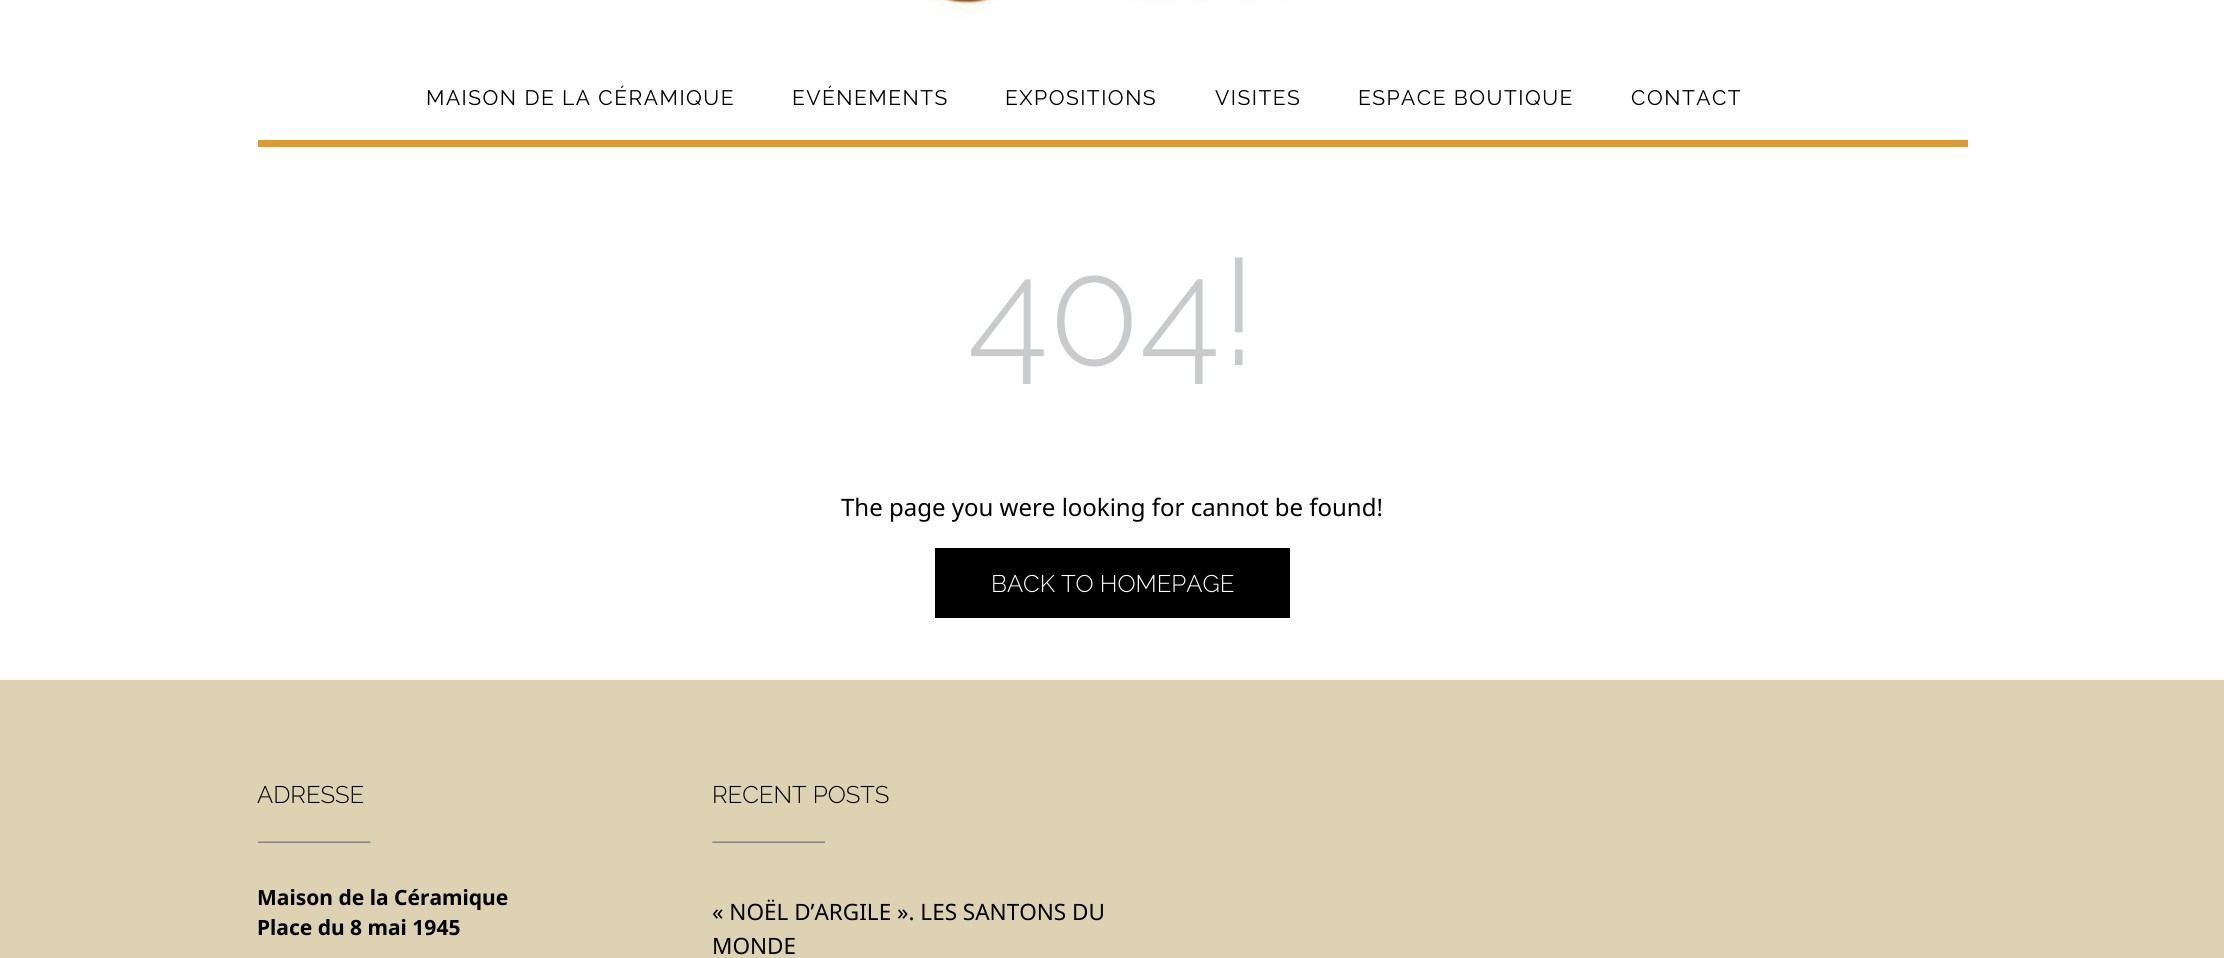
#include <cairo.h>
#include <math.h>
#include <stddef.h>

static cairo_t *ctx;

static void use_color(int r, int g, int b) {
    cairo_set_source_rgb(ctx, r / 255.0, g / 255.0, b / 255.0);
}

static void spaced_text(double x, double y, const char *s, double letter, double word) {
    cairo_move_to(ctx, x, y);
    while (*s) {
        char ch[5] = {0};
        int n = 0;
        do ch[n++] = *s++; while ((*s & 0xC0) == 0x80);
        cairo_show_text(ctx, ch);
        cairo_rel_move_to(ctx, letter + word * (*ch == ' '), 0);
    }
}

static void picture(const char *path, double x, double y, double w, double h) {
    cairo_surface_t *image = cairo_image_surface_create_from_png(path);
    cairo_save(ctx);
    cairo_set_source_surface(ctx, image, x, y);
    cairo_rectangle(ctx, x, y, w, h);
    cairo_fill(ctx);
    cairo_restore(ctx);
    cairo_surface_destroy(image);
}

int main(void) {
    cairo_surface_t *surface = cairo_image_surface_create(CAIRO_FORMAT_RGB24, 2224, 958);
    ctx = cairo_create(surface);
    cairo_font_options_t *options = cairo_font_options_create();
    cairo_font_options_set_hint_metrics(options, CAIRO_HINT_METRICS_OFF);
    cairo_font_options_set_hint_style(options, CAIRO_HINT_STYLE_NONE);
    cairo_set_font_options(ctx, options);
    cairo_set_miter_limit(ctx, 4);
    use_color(255, 255, 255);
    cairo_paint(ctx);
    picture("img1.png", 928, 0, 364, 20);
    use_color(221, 153, 51);
    cairo_rectangle(ctx, 258, 140, 1710, 7);
    cairo_fill(ctx);
    cairo_select_font_face(ctx, "Raleway", CAIRO_FONT_SLANT_NORMAL, CAIRO_FONT_WEIGHT_NORMAL);
    cairo_set_font_size(ctx, 21);
    use_color(0, 0, 0);
    spaced_text(426, 105, "MAISON DE LA CÉRAMIQUE", 1.5, 0);
    spaced_text(792, 105, "EVÉNEMENTS", 1.5, 0);
    spaced_text(1005, 105, "EXPOSITIONS", 1.5, 0);
    spaced_text(1215, 105, "VISITES", 1.5, 0);
    spaced_text(1358, 105, "ESPACE BOUTIQUE", 1.5, 0);
    spaced_text(1631, 105, "CONTACT", 1.5, 0);
    cairo_select_font_face(ctx, "Raleway Light", CAIRO_FONT_SLANT_NORMAL, CAIRO_FONT_WEIGHT_NORMAL);
    cairo_set_font_size(ctx, 150);
    use_color(200, 202, 204);
    cairo_move_to(ctx, 968, 365);
    cairo_show_text(ctx, "404!");
    cairo_select_font_face(ctx, "Noto Sans", CAIRO_FONT_SLANT_NORMAL, CAIRO_FONT_WEIGHT_NORMAL);
    cairo_set_font_size(ctx, 24);
    use_color(0, 0, 0);
    cairo_move_to(ctx, 841, 516);
    cairo_show_text(ctx, "The page you were looking for cannot be found!");
    cairo_rectangle(ctx, 935, 548, 355, 70);
    cairo_fill(ctx);
    cairo_select_font_face(ctx, "Raleway Light", CAIRO_FONT_SLANT_NORMAL, CAIRO_FONT_WEIGHT_NORMAL);
    use_color(255, 255, 255);
    cairo_move_to(ctx, 991, 592);
    cairo_show_text(ctx, "BACK TO HOMEPAGE");
    use_color(221, 210, 177);
    cairo_rectangle(ctx, 0, 680, 2224, 278);
    cairo_fill(ctx);
    picture("img2.png", 258, 841, 113, 2);
    use_color(0, 0, 0);
    cairo_move_to(ctx, 257, 803);
    cairo_show_text(ctx, "ADRESSE");
    cairo_select_font_face(ctx, "Noto Sans", CAIRO_FONT_SLANT_NORMAL, CAIRO_FONT_WEIGHT_BOLD);
    cairo_set_font_size(ctx, 21);
    cairo_move_to(ctx, 257, 905);
    cairo_show_text(ctx, "Maison de la Céramique");
    cairo_move_to(ctx, 257, 935);
    cairo_show_text(ctx, "Place du 8 mai 1945");
    picture("img3.png", 712, 841, 113, 2);
    cairo_select_font_face(ctx, "Raleway Light", CAIRO_FONT_SLANT_NORMAL, CAIRO_FONT_WEIGHT_NORMAL);
    cairo_set_font_size(ctx, 24);
    cairo_move_to(ctx, 712, 803);
    cairo_show_text(ctx, "RECENT POSTS");
    cairo_select_font_face(ctx, "Noto Sans", CAIRO_FONT_SLANT_NORMAL, CAIRO_FONT_WEIGHT_NORMAL);
    cairo_set_font_size(ctx, 22.5);
    cairo_move_to(ctx, 712, 920);
    cairo_show_text(ctx, "« NOËL D’ARGILE ». LES SANTONS DU");
    cairo_move_to(ctx, 712, 954);
    cairo_show_text(ctx, "MONDE");
    cairo_surface_write_to_png(surface, "result.png");
    cairo_font_options_destroy(options);
    cairo_destroy(ctx);
    cairo_surface_destroy(surface);
    return 0;
}
